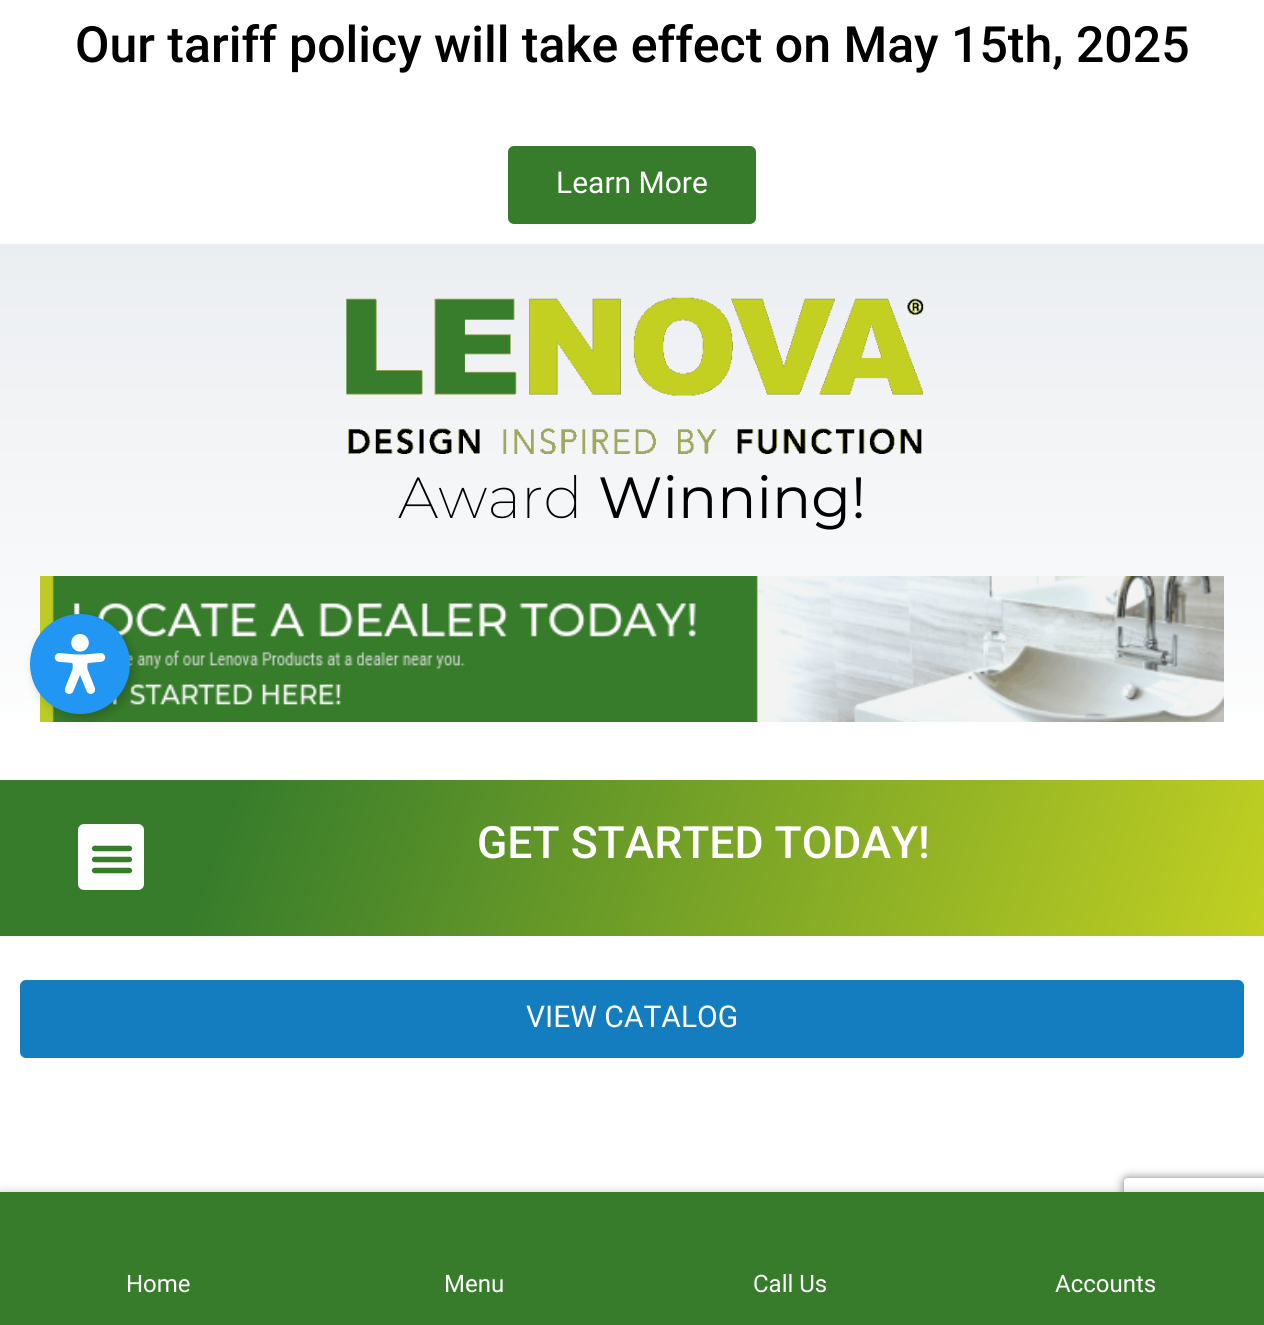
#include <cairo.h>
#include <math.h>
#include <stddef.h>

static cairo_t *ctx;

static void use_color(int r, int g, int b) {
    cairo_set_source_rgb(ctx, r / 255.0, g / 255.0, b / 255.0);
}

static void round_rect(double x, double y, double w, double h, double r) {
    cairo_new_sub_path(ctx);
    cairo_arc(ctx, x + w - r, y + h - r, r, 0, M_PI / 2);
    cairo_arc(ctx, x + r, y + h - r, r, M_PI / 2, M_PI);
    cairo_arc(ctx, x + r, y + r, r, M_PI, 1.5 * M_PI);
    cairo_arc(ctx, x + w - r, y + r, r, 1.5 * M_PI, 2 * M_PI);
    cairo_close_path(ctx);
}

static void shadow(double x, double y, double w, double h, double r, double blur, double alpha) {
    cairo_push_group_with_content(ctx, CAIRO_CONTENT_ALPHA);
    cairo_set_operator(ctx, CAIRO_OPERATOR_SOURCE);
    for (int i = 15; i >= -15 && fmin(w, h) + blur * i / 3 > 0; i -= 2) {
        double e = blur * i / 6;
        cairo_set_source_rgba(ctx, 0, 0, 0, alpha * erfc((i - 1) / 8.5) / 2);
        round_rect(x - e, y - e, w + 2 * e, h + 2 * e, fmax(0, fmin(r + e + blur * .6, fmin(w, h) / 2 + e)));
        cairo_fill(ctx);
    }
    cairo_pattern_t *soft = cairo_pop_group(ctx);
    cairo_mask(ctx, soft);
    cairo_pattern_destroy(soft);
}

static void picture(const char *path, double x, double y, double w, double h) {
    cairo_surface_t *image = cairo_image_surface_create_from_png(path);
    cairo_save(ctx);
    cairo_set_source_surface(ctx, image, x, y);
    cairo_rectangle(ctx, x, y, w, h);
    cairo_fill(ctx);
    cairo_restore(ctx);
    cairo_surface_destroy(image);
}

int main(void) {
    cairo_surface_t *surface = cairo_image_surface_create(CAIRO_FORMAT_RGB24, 1264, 1325);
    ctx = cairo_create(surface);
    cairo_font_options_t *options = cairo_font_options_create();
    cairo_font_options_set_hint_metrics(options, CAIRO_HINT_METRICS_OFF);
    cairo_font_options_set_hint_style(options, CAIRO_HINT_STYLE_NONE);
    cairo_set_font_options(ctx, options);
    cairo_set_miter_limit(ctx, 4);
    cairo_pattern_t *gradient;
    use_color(255, 255, 255);
    cairo_paint(ctx);
    cairo_select_font_face(ctx, "Roboto Medium", CAIRO_FONT_SLANT_NORMAL, CAIRO_FONT_WEIGHT_NORMAL);
    cairo_set_font_size(ctx, 50);
    use_color(0, 0, 0);
    cairo_move_to(ctx, 75, 62);
    cairo_show_text(ctx, "Our tariff policy will take effect on May 15th, 2025");
    use_color(55, 124, 43);
    round_rect(508, 146, 248, 78, 6);
    cairo_fill(ctx);
    cairo_select_font_face(ctx, "Roboto", CAIRO_FONT_SLANT_NORMAL, CAIRO_FONT_WEIGHT_NORMAL);
    cairo_set_font_size(ctx, 30);
    use_color(255, 255, 255);
    cairo_move_to(ctx, 556, 193);
    cairo_show_text(ctx, "Learn More");
    gradient = cairo_pattern_create_linear(632, 244, 632, 780);
    cairo_pattern_add_color_stop_rgba(gradient, 0, 0.922, 0.933, 0.945, 1);
    cairo_pattern_add_color_stop_rgba(gradient, 1, 1, 1, 1, 1);
    cairo_set_source(ctx, gradient);
    cairo_pattern_destroy(gradient);
    cairo_rectangle(ctx, 0, 244, 1264, 469);
    cairo_fill(ctx);
    picture("img1.png", 346, 297, 578, 157);
    cairo_select_font_face(ctx, "Montserrat ExtraLight", CAIRO_FONT_SLANT_NORMAL, CAIRO_FONT_WEIGHT_NORMAL);
    cairo_set_font_size(ctx, 58);
    use_color(0, 0, 0);
    cairo_move_to(ctx, 398, 518);
    cairo_show_text(ctx, "Award");
    cairo_select_font_face(ctx, "Montserrat", CAIRO_FONT_SLANT_NORMAL, CAIRO_FONT_WEIGHT_NORMAL);
    cairo_move_to(ctx, 598, 518);
    cairo_show_text(ctx, "Winning!");
    picture("img2.png", 40, 576, 1184, 146);
    gradient = cairo_pattern_create_linear(49, 646, 1215, 1070);
    cairo_pattern_add_color_stop_rgba(gradient, 0.18, 0.216, 0.486, 0.169, 1);
    cairo_pattern_add_color_stop_rgba(gradient, 1, 0.761, 0.816, 0.133, 1);
    cairo_set_source(ctx, gradient);
    cairo_pattern_destroy(gradient);
    cairo_rectangle(ctx, 0, 780, 1264, 156);
    cairo_fill(ctx);
    use_color(255, 255, 255);
    round_rect(78, 824, 66, 66, 6);
    cairo_fill(ctx);
    picture("img3.png", 91, 845, 42, 29);
    cairo_select_font_face(ctx, "Roboto Medium", CAIRO_FONT_SLANT_NORMAL, CAIRO_FONT_WEIGHT_NORMAL);
    cairo_set_font_size(ctx, 44.5);
    cairo_move_to(ctx, 477, 858);
    cairo_show_text(ctx, "GET STARTED TODAY!");
    use_color(19, 125, 191);
    round_rect(20, 980, 1224, 78, 6);
    cairo_fill(ctx);
    cairo_select_font_face(ctx, "Roboto", CAIRO_FONT_SLANT_NORMAL, CAIRO_FONT_WEIGHT_NORMAL);
    cairo_set_font_size(ctx, 30);
    use_color(255, 255, 255);
    cairo_move_to(ctx, 526, 1027);
    cairo_show_text(ctx, "VIEW CATALOG");
    use_color(0, 0, 0);
    shadow(34, 618, 100, 100, 50, 5, 0.2);
    use_color(33, 150, 243);
    cairo_arc(ctx, 80, 664, 50, 0, 2 * M_PI);
    cairo_fill(ctx);
    picture("img4.png", 54, 634, 52, 60);
    use_color(0, 0, 0);
    shadow(0, 1192, 1264, 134, 0, 5, 0.2);
    cairo_save(ctx);
    cairo_set_fill_rule(ctx, CAIRO_FILL_RULE_EVEN_ODD);
    cairo_new_path(ctx);
    cairo_move_to(ctx, 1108, 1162);
    cairo_line_to(ctx, 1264, 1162);
    cairo_line_to(ctx, 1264, 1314);
    cairo_line_to(ctx, 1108, 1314);
    cairo_close_path(ctx);
    cairo_move_to(ctx, 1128, 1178);
    cairo_line_to(ctx, 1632, 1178);
    cairo_curve_to(ctx, 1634, 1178, 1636, 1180, 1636, 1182);
    cairo_line_to(ctx, 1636, 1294);
    cairo_curve_to(ctx, 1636, 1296, 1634, 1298, 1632, 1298);
    cairo_line_to(ctx, 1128, 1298);
    cairo_curve_to(ctx, 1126, 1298, 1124, 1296, 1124, 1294);
    cairo_line_to(ctx, 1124, 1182);
    cairo_curve_to(ctx, 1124, 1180, 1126, 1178, 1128, 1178);
    cairo_close_path(ctx);
    cairo_clip(ctx);
    use_color(128, 128, 128);
    shadow(1124, 1178, 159, 120, 4, 5, 1);
    cairo_restore(ctx);
    use_color(55, 124, 43);
    cairo_rectangle(ctx, 0, 1192, 1264, 133);
    cairo_fill(ctx);
    cairo_set_font_size(ctx, 24);
    use_color(255, 255, 255);
    cairo_move_to(ctx, 126, 1292);
    cairo_show_text(ctx, "Home");
    cairo_move_to(ctx, 444, 1292);
    cairo_show_text(ctx, "Menu");
    cairo_move_to(ctx, 753, 1292);
    cairo_show_text(ctx, "Call Us");
    cairo_move_to(ctx, 1055, 1292);
    cairo_show_text(ctx, "Accounts");
    cairo_surface_write_to_png(surface, "result.png");
    cairo_font_options_destroy(options);
    cairo_destroy(ctx);
    cairo_surface_destroy(surface);
    return 0;
}
